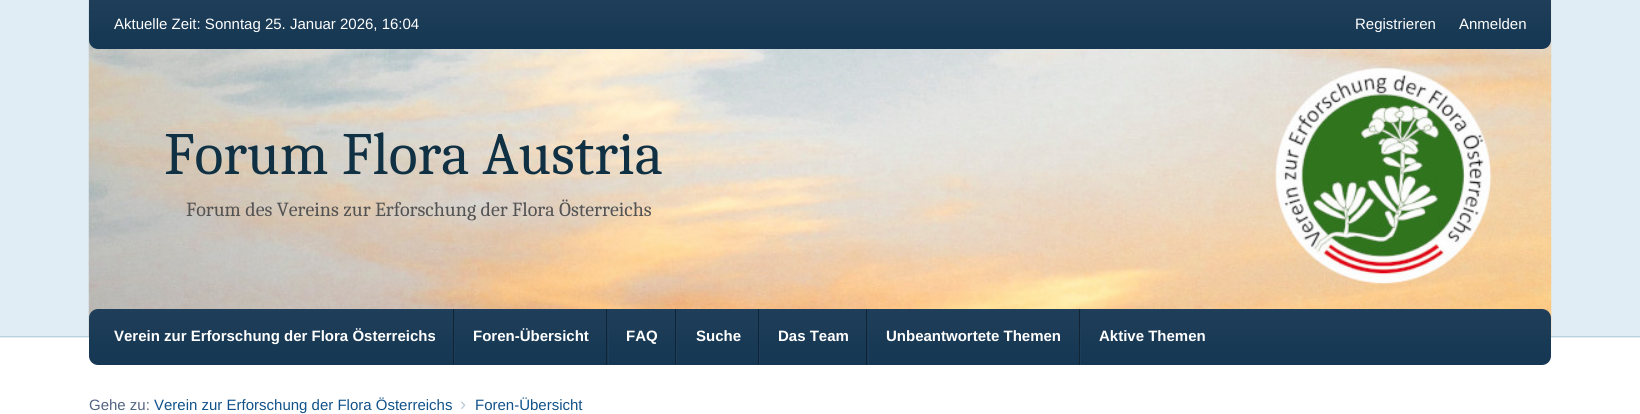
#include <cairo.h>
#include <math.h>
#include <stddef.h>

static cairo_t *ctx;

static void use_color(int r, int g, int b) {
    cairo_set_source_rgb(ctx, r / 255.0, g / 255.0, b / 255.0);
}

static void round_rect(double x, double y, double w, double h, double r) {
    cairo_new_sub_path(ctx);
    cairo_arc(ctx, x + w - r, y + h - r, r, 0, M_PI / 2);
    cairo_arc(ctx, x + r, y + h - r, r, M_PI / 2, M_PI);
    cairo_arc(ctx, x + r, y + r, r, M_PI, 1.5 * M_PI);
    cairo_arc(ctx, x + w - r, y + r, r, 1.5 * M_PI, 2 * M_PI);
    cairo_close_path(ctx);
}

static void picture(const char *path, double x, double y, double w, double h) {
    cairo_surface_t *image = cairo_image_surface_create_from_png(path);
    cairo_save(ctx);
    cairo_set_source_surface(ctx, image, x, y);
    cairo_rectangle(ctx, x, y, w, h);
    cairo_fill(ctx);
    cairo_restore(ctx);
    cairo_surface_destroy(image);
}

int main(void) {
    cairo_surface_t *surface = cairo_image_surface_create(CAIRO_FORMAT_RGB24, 1640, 414);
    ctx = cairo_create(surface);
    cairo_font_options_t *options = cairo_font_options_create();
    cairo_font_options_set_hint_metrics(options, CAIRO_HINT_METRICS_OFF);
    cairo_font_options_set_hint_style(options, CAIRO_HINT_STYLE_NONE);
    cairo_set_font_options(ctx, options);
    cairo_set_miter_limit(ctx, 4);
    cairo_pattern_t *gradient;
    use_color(255, 255, 255);
    cairo_paint(ctx);
    use_color(224, 237, 244);
    cairo_rectangle(ctx, 0, 0, 1640, 338);
    cairo_fill(ctx);
    use_color(186, 209, 222);
    cairo_rectangle(ctx, 0, 336, 1640, 1);
    cairo_fill(ctx);
    picture("img1.png", 88, 0, 1464, 337);
    gradient = cairo_pattern_create_linear(820, 0, 820, 49);
    cairo_pattern_add_color_stop_rgba(gradient, 0, 0.122, 0.243, 0.349, 1);
    cairo_pattern_add_color_stop_rgba(gradient, 1, 0.082, 0.216, 0.325, 1);
    cairo_set_source(ctx, gradient);
    cairo_pattern_destroy(gradient);
    cairo_new_path(ctx);
    cairo_move_to(ctx, 89, 0);
    cairo_line_to(ctx, 1551, 0);
    cairo_line_to(ctx, 1551, 40);
    cairo_curve_to(ctx, 1551, 45, 1547, 49, 1542, 49);
    cairo_line_to(ctx, 98, 49);
    cairo_curve_to(ctx, 93, 49, 89, 45, 89, 40);
    cairo_close_path(ctx);
    cairo_fill(ctx);
    cairo_select_font_face(ctx, "Liberation Sans", CAIRO_FONT_SLANT_NORMAL, CAIRO_FONT_WEIGHT_NORMAL);
    cairo_set_font_size(ctx, 15);
    use_color(255, 255, 255);
    cairo_move_to(ctx, 114, 29);
    cairo_show_text(ctx, "Aktuelle Zeit: Sonntag 25. Januar 2026, 16:04");
    cairo_move_to(ctx, 1355, 29);
    cairo_show_text(ctx, "Registrieren");
    cairo_move_to(ctx, 1459, 29);
    cairo_show_text(ctx, "Anmelden");
    cairo_select_font_face(ctx, "Caladea", CAIRO_FONT_SLANT_NORMAL, CAIRO_FONT_WEIGHT_NORMAL);
    cairo_set_font_size(ctx, 60);
    use_color(16, 49, 67);
    cairo_move_to(ctx, 164, 174);
    cairo_show_text(ctx, "Forum Flora Austria");
    cairo_set_font_size(ctx, 20);
    use_color(83, 83, 83);
    cairo_move_to(ctx, 186, 216);
    cairo_show_text(ctx, "Forum des Vereins zur Erforschung der Flora Österreichs");
    gradient = cairo_pattern_create_linear(820, 309, 820, 365);
    cairo_pattern_add_color_stop_rgba(gradient, 0, 0.122, 0.243, 0.349, 1);
    cairo_pattern_add_color_stop_rgba(gradient, 1, 0.082, 0.216, 0.325, 1);
    cairo_set_source(ctx, gradient);
    cairo_pattern_destroy(gradient);
    round_rect(89, 309, 1462, 56, 9);
    cairo_fill(ctx);
    use_color(16, 36, 53);
    cairo_rectangle(ctx, 453, 309, 1, 56);
    cairo_fill(ctx);
    cairo_select_font_face(ctx, "Liberation Sans", CAIRO_FONT_SLANT_NORMAL, CAIRO_FONT_WEIGHT_BOLD);
    cairo_set_font_size(ctx, 15);
    use_color(255, 255, 255);
    cairo_move_to(ctx, 114, 341);
    cairo_show_text(ctx, "Verein zur Erforschung der Flora Österreichs");
    use_color(16, 36, 53);
    cairo_rectangle(ctx, 606, 309, 1, 56);
    cairo_fill(ctx);
    use_color(28, 62, 92);
    cairo_rectangle(ctx, 454, 309, 1, 56);
    cairo_fill(ctx);
    use_color(255, 255, 255);
    cairo_move_to(ctx, 473, 341);
    cairo_show_text(ctx, "Foren-Übersicht");
    use_color(16, 36, 53);
    cairo_rectangle(ctx, 675, 309, 1, 56);
    cairo_fill(ctx);
    use_color(28, 62, 92);
    cairo_rectangle(ctx, 608, 309, 1, 56);
    cairo_fill(ctx);
    use_color(255, 255, 255);
    cairo_move_to(ctx, 626, 341);
    cairo_show_text(ctx, "FAQ");
    use_color(16, 36, 53);
    cairo_rectangle(ctx, 758, 309, 1, 56);
    cairo_fill(ctx);
    use_color(28, 62, 92);
    cairo_rectangle(ctx, 676, 309, 1, 56);
    cairo_fill(ctx);
    use_color(255, 255, 255);
    cairo_move_to(ctx, 696, 341);
    cairo_show_text(ctx, "Suche");
    use_color(16, 36, 53);
    cairo_rectangle(ctx, 866, 309, 1, 56);
    cairo_fill(ctx);
    use_color(28, 62, 92);
    cairo_rectangle(ctx, 759, 309, 1, 56);
    cairo_fill(ctx);
    use_color(255, 255, 255);
    cairo_move_to(ctx, 778, 341);
    cairo_show_text(ctx, "Das Team");
    use_color(16, 36, 53);
    cairo_rectangle(ctx, 1079, 309, 1, 56);
    cairo_fill(ctx);
    use_color(28, 62, 92);
    cairo_rectangle(ctx, 868, 309, 1, 56);
    cairo_fill(ctx);
    use_color(255, 255, 255);
    cairo_move_to(ctx, 886, 341);
    cairo_show_text(ctx, "Unbeantwortete Themen");
    use_color(28, 62, 92);
    cairo_rectangle(ctx, 1080, 309, 1, 56);
    cairo_fill(ctx);
    use_color(255, 255, 255);
    cairo_move_to(ctx, 1099, 341);
    cairo_show_text(ctx, "Aktive Themen");
    cairo_select_font_face(ctx, "Liberation Sans", CAIRO_FONT_SLANT_NORMAL, CAIRO_FONT_WEIGHT_NORMAL);
    use_color(83, 100, 130);
    cairo_move_to(ctx, 89, 410);
    cairo_show_text(ctx, "Gehe zu:");
    use_color(16, 82, 137);
    cairo_move_to(ctx, 154, 410);
    cairo_show_text(ctx, "Verein zur Erforschung der Flora Österreichs");
    cairo_set_font_size(ctx, 18);
    use_color(183, 201, 215);
    cairo_move_to(ctx, 460, 410);
    cairo_show_text(ctx, "›");
    cairo_set_font_size(ctx, 15);
    use_color(16, 82, 137);
    cairo_move_to(ctx, 475, 410);
    cairo_show_text(ctx, "Foren-Übersicht");
    cairo_surface_write_to_png(surface, "result.png");
    cairo_font_options_destroy(options);
    cairo_destroy(ctx);
    cairo_surface_destroy(surface);
    return 0;
}
